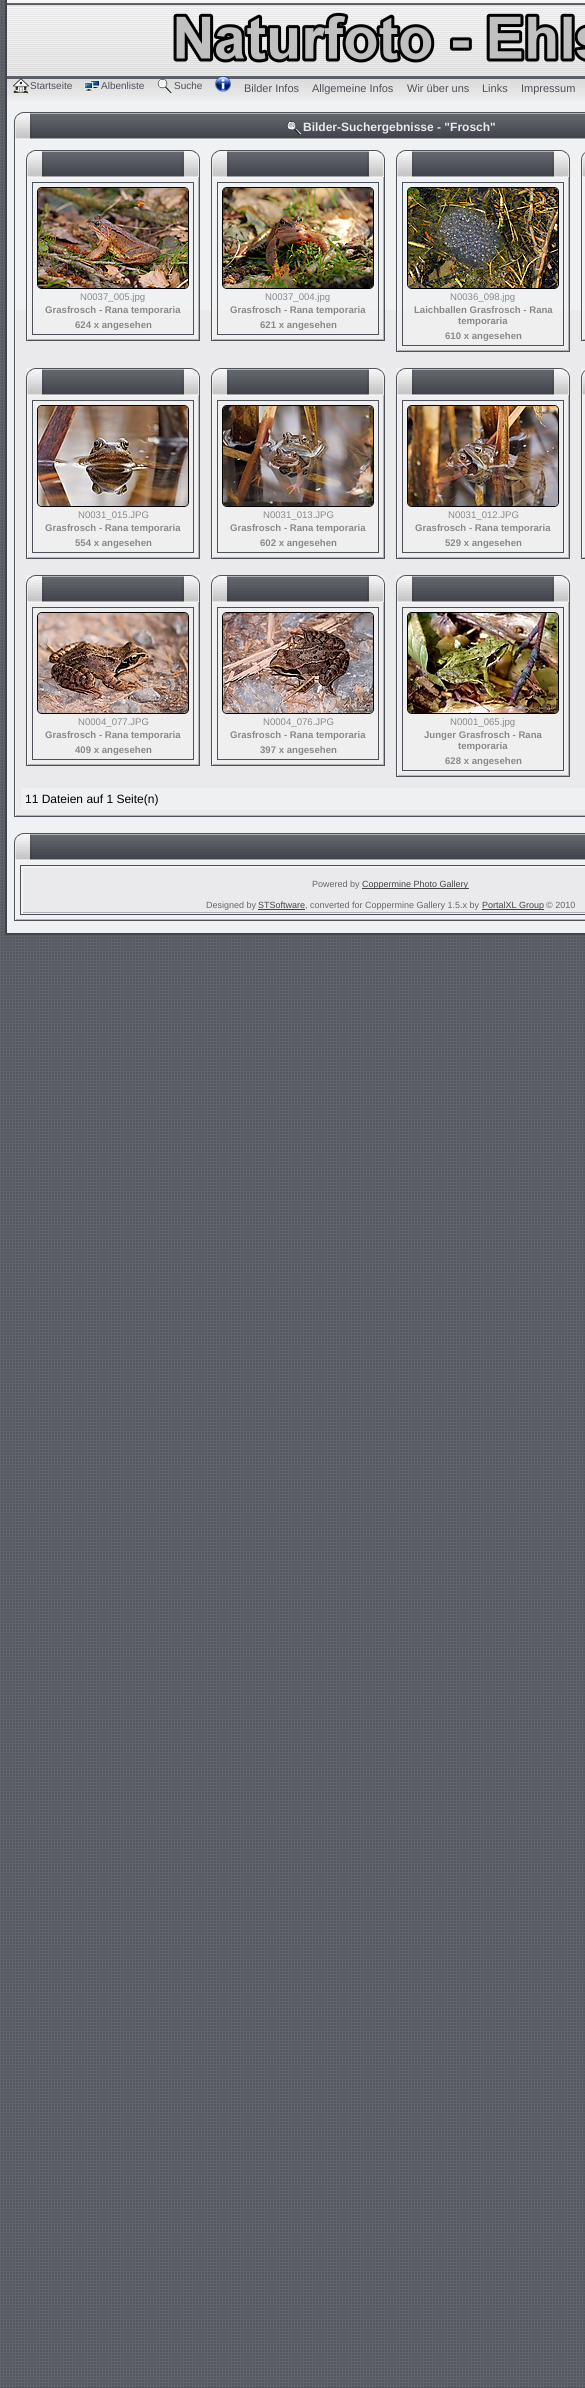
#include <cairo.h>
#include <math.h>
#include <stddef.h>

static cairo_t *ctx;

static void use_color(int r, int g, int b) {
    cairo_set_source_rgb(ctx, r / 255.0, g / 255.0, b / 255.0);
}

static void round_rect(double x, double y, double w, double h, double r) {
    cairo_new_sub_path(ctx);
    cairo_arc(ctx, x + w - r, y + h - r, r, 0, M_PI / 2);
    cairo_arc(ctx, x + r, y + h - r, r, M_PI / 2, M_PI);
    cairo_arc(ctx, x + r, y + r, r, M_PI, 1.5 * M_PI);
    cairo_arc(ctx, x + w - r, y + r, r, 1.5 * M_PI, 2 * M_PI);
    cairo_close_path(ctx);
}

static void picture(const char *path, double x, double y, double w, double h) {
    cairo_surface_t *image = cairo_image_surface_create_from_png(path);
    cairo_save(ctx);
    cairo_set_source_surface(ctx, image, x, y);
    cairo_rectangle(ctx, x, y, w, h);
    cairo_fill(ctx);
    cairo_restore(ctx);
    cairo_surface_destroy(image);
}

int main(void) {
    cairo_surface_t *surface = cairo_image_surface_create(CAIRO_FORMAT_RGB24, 585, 2388);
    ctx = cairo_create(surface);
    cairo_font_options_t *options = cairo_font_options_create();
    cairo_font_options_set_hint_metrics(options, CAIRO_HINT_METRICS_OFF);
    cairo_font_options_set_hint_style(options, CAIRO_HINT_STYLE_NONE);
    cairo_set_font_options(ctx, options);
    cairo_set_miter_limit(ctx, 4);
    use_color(98, 100, 107);
    cairo_paint(ctx);
    picture("img1.png", 1, 1, 584, 2387);
    use_color(66, 68, 76);
    cairo_rectangle(ctx, 5, 933, 580, 2);
    cairo_fill(ctx);
    cairo_rectangle(ctx, 5, 0, 2, 935);
    cairo_fill(ctx);
    picture("img2.png", 7, 0, 578, 76);
    picture("img3.png", 173, 12, 412, 51);
    picture("img4.png", 7, 76, 578, 25);
    picture("img5.png", 13, 78, 16, 16);
    cairo_select_font_face(ctx, "Liberation Sans", CAIRO_FONT_SLANT_NORMAL, CAIRO_FONT_WEIGHT_NORMAL);
    cairo_set_font_size(ctx, 10);
    use_color(78, 81, 89);
    cairo_move_to(ctx, 30, 89);
    cairo_show_text(ctx, "Startseite");
    picture("img6.png", 84, 80, 16, 12);
    cairo_move_to(ctx, 101, 89);
    cairo_show_text(ctx, "Albenliste");
    picture("img7.png", 157, 78, 16, 15);
    cairo_move_to(ctx, 174, 89);
    cairo_show_text(ctx, "Suche");
    picture("img8.png", 215, 76, 16, 16);
    cairo_set_font_size(ctx, 11);
    cairo_move_to(ctx, 244, 92);
    cairo_show_text(ctx, "Bilder Infos");
    cairo_move_to(ctx, 312, 92);
    cairo_show_text(ctx, "Allgemeine Infos");
    cairo_move_to(ctx, 407, 92);
    cairo_show_text(ctx, "Wir über uns");
    cairo_move_to(ctx, 482, 92);
    cairo_show_text(ctx, "Links");
    cairo_move_to(ctx, 521, 92);
    cairo_show_text(ctx, "Impressum");
    use_color(240, 241, 242);
    cairo_rectangle(ctx, 7, 101, 578, 832);
    cairo_fill(ctx);
    cairo_rectangle(ctx, 14.5, 112.5, 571, 704);
    use_color(78, 81, 89);
    cairo_set_line_width(ctx, 1);
    cairo_stroke(ctx);
    picture("img9.png", 32, 113, 553, 26);
    picture("img10.png", 14, 112, 18, 27);
    picture("img11.png", 286, 120, 16, 15);
    cairo_select_font_face(ctx, "Liberation Sans", CAIRO_FONT_SLANT_NORMAL, CAIRO_FONT_WEIGHT_BOLD);
    cairo_set_font_size(ctx, 12);
    use_color(234, 234, 236);
    cairo_move_to(ctx, 303, 131);
    cairo_show_text(ctx, "Bilder-Suchergebnisse - \"Frosch\"");
    cairo_rectangle(ctx, 16, 310, 569, 505);
    cairo_fill(ctx);
    use_color(247, 247, 247);
    cairo_rectangle(ctx, 15, 139, 570, 1);
    cairo_fill(ctx);
    use_color(177, 178, 182);
    cairo_rectangle(ctx, 15, 815, 570, 1);
    cairo_fill(ctx);
    use_color(247, 247, 247);
    cairo_rectangle(ctx, 15, 139, 1, 677);
    cairo_fill(ctx);
    cairo_rectangle(ctx, 26.5, 150.5, 173, 190);
    use_color(78, 81, 89);
    cairo_stroke(ctx);
    picture("img12.png", 44, 151, 138, 26);
    picture("img10.png", 26, 150, 18, 27);
    picture("img13.png", 182, 150, 18, 27);
    use_color(239, 239, 240);
    cairo_rectangle(ctx, 28, 310, 170, 29);
    cairo_fill(ctx);
    use_color(247, 247, 247);
    cairo_rectangle(ctx, 27, 177, 172, 1);
    cairo_fill(ctx);
    use_color(177, 178, 182);
    cairo_rectangle(ctx, 198, 177, 1, 163);
    cairo_fill(ctx);
    cairo_rectangle(ctx, 27, 339, 172, 1);
    cairo_fill(ctx);
    use_color(247, 247, 247);
    cairo_rectangle(ctx, 27, 177, 1, 163);
    cairo_fill(ctx);
    cairo_rectangle(ctx, 32.5, 182.5, 161, 152);
    use_color(78, 81, 89);
    cairo_stroke(ctx);
    round_rect(37.5, 187.5, 151, 101, 4.5);
    use_color(0, 0, 0);
    cairo_stroke(ctx);
    picture("img14.png", 38, 188, 150, 100);
    cairo_select_font_face(ctx, "Liberation Sans", CAIRO_FONT_SLANT_NORMAL, CAIRO_FONT_WEIGHT_NORMAL);
    cairo_set_font_size(ctx, 9.6);
    use_color(137, 137, 137);
    cairo_move_to(ctx, 80, 300);
    cairo_show_text(ctx, "N0037_005.jpg");
    cairo_select_font_face(ctx, "Liberation Sans", CAIRO_FONT_SLANT_NORMAL, CAIRO_FONT_WEIGHT_BOLD);
    cairo_move_to(ctx, 45, 313);
    cairo_show_text(ctx, "Grasfrosch - Rana temporaria");
    cairo_move_to(ctx, 75, 328);
    cairo_show_text(ctx, "624 x angesehen");
    cairo_rectangle(ctx, 211.5, 150.5, 173, 190);
    use_color(78, 81, 89);
    cairo_stroke(ctx);
    picture("img12.png", 229, 151, 138, 26);
    picture("img10.png", 211, 150, 18, 27);
    picture("img13.png", 367, 150, 18, 27);
    use_color(239, 239, 240);
    cairo_rectangle(ctx, 213, 310, 170, 29);
    cairo_fill(ctx);
    use_color(247, 247, 247);
    cairo_rectangle(ctx, 212, 177, 172, 1);
    cairo_fill(ctx);
    use_color(177, 178, 182);
    cairo_rectangle(ctx, 383, 177, 1, 163);
    cairo_fill(ctx);
    cairo_rectangle(ctx, 212, 339, 172, 1);
    cairo_fill(ctx);
    use_color(247, 247, 247);
    cairo_rectangle(ctx, 212, 177, 1, 163);
    cairo_fill(ctx);
    cairo_rectangle(ctx, 217.5, 182.5, 161, 152);
    use_color(78, 81, 89);
    cairo_stroke(ctx);
    round_rect(222.5, 187.5, 151, 101, 4.5);
    use_color(0, 0, 0);
    cairo_stroke(ctx);
    picture("img15.png", 223, 188, 150, 100);
    cairo_select_font_face(ctx, "Liberation Sans", CAIRO_FONT_SLANT_NORMAL, CAIRO_FONT_WEIGHT_NORMAL);
    use_color(137, 137, 137);
    cairo_move_to(ctx, 265, 300);
    cairo_show_text(ctx, "N0037_004.jpg");
    cairo_select_font_face(ctx, "Liberation Sans", CAIRO_FONT_SLANT_NORMAL, CAIRO_FONT_WEIGHT_BOLD);
    cairo_move_to(ctx, 230, 313);
    cairo_show_text(ctx, "Grasfrosch - Rana temporaria");
    cairo_move_to(ctx, 260, 328);
    cairo_show_text(ctx, "621 x angesehen");
    cairo_rectangle(ctx, 396.5, 150.5, 173, 201);
    use_color(78, 81, 89);
    cairo_stroke(ctx);
    picture("img12.png", 414, 151, 138, 26);
    picture("img10.png", 396, 150, 18, 27);
    picture("img13.png", 552, 150, 18, 27);
    use_color(239, 239, 240);
    cairo_rectangle(ctx, 398, 310, 170, 38);
    cairo_fill(ctx);
    use_color(247, 247, 247);
    cairo_rectangle(ctx, 397, 177, 172, 1);
    cairo_fill(ctx);
    use_color(177, 178, 182);
    cairo_rectangle(ctx, 568, 177, 1, 174);
    cairo_fill(ctx);
    cairo_rectangle(ctx, 397, 350, 172, 1);
    cairo_fill(ctx);
    use_color(247, 247, 247);
    cairo_rectangle(ctx, 397, 177, 1, 174);
    cairo_fill(ctx);
    cairo_rectangle(ctx, 402.5, 182.5, 161, 163);
    use_color(78, 81, 89);
    cairo_stroke(ctx);
    round_rect(407.5, 187.5, 151, 101, 4.5);
    use_color(0, 0, 0);
    cairo_stroke(ctx);
    picture("img16.png", 408, 188, 150, 100);
    cairo_select_font_face(ctx, "Liberation Sans", CAIRO_FONT_SLANT_NORMAL, CAIRO_FONT_WEIGHT_NORMAL);
    use_color(137, 137, 137);
    cairo_move_to(ctx, 450, 300);
    cairo_show_text(ctx, "N0036_098.jpg");
    cairo_select_font_face(ctx, "Liberation Sans", CAIRO_FONT_SLANT_NORMAL, CAIRO_FONT_WEIGHT_BOLD);
    cairo_move_to(ctx, 414, 313);
    cairo_show_text(ctx, "Laichballen Grasfrosch - Rana");
    cairo_move_to(ctx, 458, 324);
    cairo_show_text(ctx, "temporaria");
    cairo_move_to(ctx, 445, 339);
    cairo_show_text(ctx, "610 x angesehen");
    cairo_rectangle(ctx, 581.5, 150.5, 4, 190);
    use_color(78, 81, 89);
    cairo_stroke(ctx);
    picture("img17.png", 581, 150, 4, 27);
    use_color(239, 239, 240);
    cairo_rectangle(ctx, 583, 310, 2, 30);
    cairo_fill(ctx);
    use_color(247, 247, 247);
    cairo_rectangle(ctx, 582, 177, 3, 1);
    cairo_fill(ctx);
    use_color(177, 178, 182);
    cairo_rectangle(ctx, 582, 339, 3, 1);
    cairo_fill(ctx);
    use_color(247, 247, 247);
    cairo_rectangle(ctx, 582, 177, 1, 163);
    cairo_fill(ctx);
    cairo_rectangle(ctx, 26.5, 368.5, 173, 190);
    use_color(78, 81, 89);
    cairo_stroke(ctx);
    picture("img12.png", 44, 369, 138, 26);
    picture("img10.png", 26, 368, 18, 27);
    picture("img13.png", 182, 368, 18, 27);
    use_color(239, 239, 240);
    cairo_rectangle(ctx, 28, 396, 170, 161);
    cairo_fill(ctx);
    use_color(247, 247, 247);
    cairo_rectangle(ctx, 27, 395, 172, 1);
    cairo_fill(ctx);
    use_color(177, 178, 182);
    cairo_rectangle(ctx, 198, 395, 1, 163);
    cairo_fill(ctx);
    cairo_rectangle(ctx, 27, 557, 172, 1);
    cairo_fill(ctx);
    use_color(247, 247, 247);
    cairo_rectangle(ctx, 27, 395, 1, 163);
    cairo_fill(ctx);
    cairo_rectangle(ctx, 32.5, 400.5, 161, 152);
    use_color(78, 81, 89);
    cairo_stroke(ctx);
    round_rect(37.5, 405.5, 151, 101, 4.5);
    use_color(0, 0, 0);
    cairo_stroke(ctx);
    picture("img18.png", 38, 406, 150, 100);
    cairo_select_font_face(ctx, "Liberation Sans", CAIRO_FONT_SLANT_NORMAL, CAIRO_FONT_WEIGHT_NORMAL);
    use_color(137, 137, 137);
    cairo_move_to(ctx, 78, 518);
    cairo_show_text(ctx, "N0031_015.JPG");
    cairo_select_font_face(ctx, "Liberation Sans", CAIRO_FONT_SLANT_NORMAL, CAIRO_FONT_WEIGHT_BOLD);
    cairo_move_to(ctx, 45, 531);
    cairo_show_text(ctx, "Grasfrosch - Rana temporaria");
    cairo_move_to(ctx, 75, 546);
    cairo_show_text(ctx, "554 x angesehen");
    cairo_rectangle(ctx, 211.5, 368.5, 173, 190);
    use_color(78, 81, 89);
    cairo_stroke(ctx);
    picture("img12.png", 229, 369, 138, 26);
    picture("img10.png", 211, 368, 18, 27);
    picture("img13.png", 367, 368, 18, 27);
    use_color(239, 239, 240);
    cairo_rectangle(ctx, 213, 396, 170, 161);
    cairo_fill(ctx);
    use_color(247, 247, 247);
    cairo_rectangle(ctx, 212, 395, 172, 1);
    cairo_fill(ctx);
    use_color(177, 178, 182);
    cairo_rectangle(ctx, 383, 395, 1, 163);
    cairo_fill(ctx);
    cairo_rectangle(ctx, 212, 557, 172, 1);
    cairo_fill(ctx);
    use_color(247, 247, 247);
    cairo_rectangle(ctx, 212, 395, 1, 163);
    cairo_fill(ctx);
    cairo_rectangle(ctx, 217.5, 400.5, 161, 152);
    use_color(78, 81, 89);
    cairo_stroke(ctx);
    round_rect(222.5, 405.5, 151, 101, 4.5);
    use_color(0, 0, 0);
    cairo_stroke(ctx);
    picture("img19.png", 223, 406, 150, 100);
    cairo_select_font_face(ctx, "Liberation Sans", CAIRO_FONT_SLANT_NORMAL, CAIRO_FONT_WEIGHT_NORMAL);
    use_color(137, 137, 137);
    cairo_move_to(ctx, 263, 518);
    cairo_show_text(ctx, "N0031_013.JPG");
    cairo_select_font_face(ctx, "Liberation Sans", CAIRO_FONT_SLANT_NORMAL, CAIRO_FONT_WEIGHT_BOLD);
    cairo_move_to(ctx, 230, 531);
    cairo_show_text(ctx, "Grasfrosch - Rana temporaria");
    cairo_move_to(ctx, 260, 546);
    cairo_show_text(ctx, "602 x angesehen");
    cairo_rectangle(ctx, 396.5, 368.5, 173, 190);
    use_color(78, 81, 89);
    cairo_stroke(ctx);
    picture("img12.png", 414, 369, 138, 26);
    picture("img10.png", 396, 368, 18, 27);
    picture("img13.png", 552, 368, 18, 27);
    use_color(239, 239, 240);
    cairo_rectangle(ctx, 398, 396, 170, 161);
    cairo_fill(ctx);
    use_color(247, 247, 247);
    cairo_rectangle(ctx, 397, 395, 172, 1);
    cairo_fill(ctx);
    use_color(177, 178, 182);
    cairo_rectangle(ctx, 568, 395, 1, 163);
    cairo_fill(ctx);
    cairo_rectangle(ctx, 397, 557, 172, 1);
    cairo_fill(ctx);
    use_color(247, 247, 247);
    cairo_rectangle(ctx, 397, 395, 1, 163);
    cairo_fill(ctx);
    cairo_rectangle(ctx, 402.5, 400.5, 161, 152);
    use_color(78, 81, 89);
    cairo_stroke(ctx);
    round_rect(407.5, 405.5, 151, 101, 4.5);
    use_color(0, 0, 0);
    cairo_stroke(ctx);
    picture("img20.png", 408, 406, 150, 100);
    cairo_select_font_face(ctx, "Liberation Sans", CAIRO_FONT_SLANT_NORMAL, CAIRO_FONT_WEIGHT_NORMAL);
    use_color(137, 137, 137);
    cairo_move_to(ctx, 448, 518);
    cairo_show_text(ctx, "N0031_012.JPG");
    cairo_select_font_face(ctx, "Liberation Sans", CAIRO_FONT_SLANT_NORMAL, CAIRO_FONT_WEIGHT_BOLD);
    cairo_move_to(ctx, 415, 531);
    cairo_show_text(ctx, "Grasfrosch - Rana temporaria");
    cairo_move_to(ctx, 445, 546);
    cairo_show_text(ctx, "529 x angesehen");
    cairo_rectangle(ctx, 581.5, 368.5, 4, 190);
    use_color(78, 81, 89);
    cairo_stroke(ctx);
    picture("img17.png", 581, 368, 4, 27);
    use_color(239, 239, 240);
    cairo_rectangle(ctx, 583, 396, 2, 162);
    cairo_fill(ctx);
    use_color(247, 247, 247);
    cairo_rectangle(ctx, 582, 395, 3, 1);
    cairo_fill(ctx);
    use_color(177, 178, 182);
    cairo_rectangle(ctx, 582, 557, 3, 1);
    cairo_fill(ctx);
    use_color(247, 247, 247);
    cairo_rectangle(ctx, 582, 395, 1, 163);
    cairo_fill(ctx);
    cairo_rectangle(ctx, 26.5, 575.5, 173, 190);
    use_color(78, 81, 89);
    cairo_stroke(ctx);
    picture("img12.png", 44, 576, 138, 26);
    picture("img10.png", 26, 575, 18, 27);
    picture("img13.png", 182, 575, 18, 27);
    use_color(239, 239, 240);
    cairo_rectangle(ctx, 28, 603, 170, 161);
    cairo_fill(ctx);
    use_color(247, 247, 247);
    cairo_rectangle(ctx, 27, 602, 172, 1);
    cairo_fill(ctx);
    use_color(177, 178, 182);
    cairo_rectangle(ctx, 198, 602, 1, 163);
    cairo_fill(ctx);
    cairo_rectangle(ctx, 27, 764, 172, 1);
    cairo_fill(ctx);
    use_color(247, 247, 247);
    cairo_rectangle(ctx, 27, 602, 1, 163);
    cairo_fill(ctx);
    cairo_rectangle(ctx, 32.5, 607.5, 161, 152);
    use_color(78, 81, 89);
    cairo_stroke(ctx);
    round_rect(37.5, 612.5, 151, 101, 4.5);
    use_color(0, 0, 0);
    cairo_stroke(ctx);
    picture("img21.png", 38, 613, 150, 100);
    cairo_select_font_face(ctx, "Liberation Sans", CAIRO_FONT_SLANT_NORMAL, CAIRO_FONT_WEIGHT_NORMAL);
    use_color(137, 137, 137);
    cairo_move_to(ctx, 78, 725);
    cairo_show_text(ctx, "N0004_077.JPG");
    cairo_select_font_face(ctx, "Liberation Sans", CAIRO_FONT_SLANT_NORMAL, CAIRO_FONT_WEIGHT_BOLD);
    cairo_move_to(ctx, 45, 738);
    cairo_show_text(ctx, "Grasfrosch - Rana temporaria");
    cairo_move_to(ctx, 75, 753);
    cairo_show_text(ctx, "409 x angesehen");
    cairo_rectangle(ctx, 211.5, 575.5, 173, 190);
    use_color(78, 81, 89);
    cairo_stroke(ctx);
    picture("img12.png", 229, 576, 138, 26);
    picture("img10.png", 211, 575, 18, 27);
    picture("img13.png", 367, 575, 18, 27);
    use_color(239, 239, 240);
    cairo_rectangle(ctx, 213, 603, 170, 161);
    cairo_fill(ctx);
    use_color(247, 247, 247);
    cairo_rectangle(ctx, 212, 602, 172, 1);
    cairo_fill(ctx);
    use_color(177, 178, 182);
    cairo_rectangle(ctx, 383, 602, 1, 163);
    cairo_fill(ctx);
    cairo_rectangle(ctx, 212, 764, 172, 1);
    cairo_fill(ctx);
    use_color(247, 247, 247);
    cairo_rectangle(ctx, 212, 602, 1, 163);
    cairo_fill(ctx);
    cairo_rectangle(ctx, 217.5, 607.5, 161, 152);
    use_color(78, 81, 89);
    cairo_stroke(ctx);
    round_rect(222.5, 612.5, 151, 101, 4.5);
    use_color(0, 0, 0);
    cairo_stroke(ctx);
    picture("img22.png", 223, 613, 150, 100);
    cairo_select_font_face(ctx, "Liberation Sans", CAIRO_FONT_SLANT_NORMAL, CAIRO_FONT_WEIGHT_NORMAL);
    use_color(137, 137, 137);
    cairo_move_to(ctx, 263, 725);
    cairo_show_text(ctx, "N0004_076.JPG");
    cairo_select_font_face(ctx, "Liberation Sans", CAIRO_FONT_SLANT_NORMAL, CAIRO_FONT_WEIGHT_BOLD);
    cairo_move_to(ctx, 230, 738);
    cairo_show_text(ctx, "Grasfrosch - Rana temporaria");
    cairo_move_to(ctx, 260, 753);
    cairo_show_text(ctx, "397 x angesehen");
    cairo_rectangle(ctx, 396.5, 575.5, 173, 201);
    use_color(78, 81, 89);
    cairo_stroke(ctx);
    picture("img12.png", 414, 576, 138, 26);
    picture("img10.png", 396, 575, 18, 27);
    picture("img13.png", 552, 575, 18, 27);
    use_color(239, 239, 240);
    cairo_rectangle(ctx, 398, 603, 170, 170);
    cairo_fill(ctx);
    use_color(247, 247, 247);
    cairo_rectangle(ctx, 397, 602, 172, 1);
    cairo_fill(ctx);
    use_color(177, 178, 182);
    cairo_rectangle(ctx, 568, 602, 1, 174);
    cairo_fill(ctx);
    cairo_rectangle(ctx, 397, 775, 172, 1);
    cairo_fill(ctx);
    use_color(247, 247, 247);
    cairo_rectangle(ctx, 397, 602, 1, 174);
    cairo_fill(ctx);
    cairo_rectangle(ctx, 402.5, 607.5, 161, 163);
    use_color(78, 81, 89);
    cairo_stroke(ctx);
    round_rect(407.5, 612.5, 151, 101, 4.5);
    use_color(0, 0, 0);
    cairo_stroke(ctx);
    picture("img23.png", 408, 613, 150, 100);
    cairo_select_font_face(ctx, "Liberation Sans", CAIRO_FONT_SLANT_NORMAL, CAIRO_FONT_WEIGHT_NORMAL);
    use_color(137, 137, 137);
    cairo_move_to(ctx, 450, 725);
    cairo_show_text(ctx, "N0001_065.jpg");
    cairo_select_font_face(ctx, "Liberation Sans", CAIRO_FONT_SLANT_NORMAL, CAIRO_FONT_WEIGHT_BOLD);
    cairo_move_to(ctx, 424, 738);
    cairo_show_text(ctx, "Junger Grasfrosch - Rana");
    cairo_move_to(ctx, 458, 749);
    cairo_show_text(ctx, "temporaria");
    cairo_move_to(ctx, 445, 764);
    cairo_show_text(ctx, "628 x angesehen");
    use_color(239, 240, 241);
    cairo_rectangle(ctx, 21, 788, 564, 22);
    cairo_fill(ctx);
    cairo_select_font_face(ctx, "Liberation Sans", CAIRO_FONT_SLANT_NORMAL, CAIRO_FONT_WEIGHT_NORMAL);
    cairo_set_font_size(ctx, 12);
    use_color(0, 0, 0);
    cairo_move_to(ctx, 25, 803);
    cairo_show_text(ctx, "11 Dateien auf 1 Seite(n)");
    cairo_rectangle(ctx, 14.5, 833.5, 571, 87);
    use_color(78, 81, 89);
    cairo_stroke(ctx);
    picture("img9.png", 32, 834, 553, 26);
    picture("img10.png", 14, 833, 18, 27);
    use_color(247, 247, 247);
    cairo_rectangle(ctx, 15, 860, 570, 1);
    cairo_fill(ctx);
    use_color(177, 178, 182);
    cairo_rectangle(ctx, 15, 919, 570, 1);
    cairo_fill(ctx);
    use_color(247, 247, 247);
    cairo_rectangle(ctx, 15, 860, 1, 60);
    cairo_fill(ctx);
    cairo_rectangle(ctx, 20.5, 865.5, 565, 49);
    use_color(78, 81, 89);
    cairo_stroke(ctx);
    use_color(234, 234, 236);
    cairo_rectangle(ctx, 23, 868, 562, 44);
    cairo_fill(ctx);
    use_color(247, 247, 247);
    cairo_rectangle(ctx, 22, 867, 563, 1);
    cairo_fill(ctx);
    use_color(177, 178, 182);
    cairo_rectangle(ctx, 22, 912, 563, 1);
    cairo_fill(ctx);
    use_color(247, 247, 247);
    cairo_rectangle(ctx, 22, 867, 1, 46);
    cairo_fill(ctx);
    cairo_set_font_size(ctx, 9);
    use_color(102, 102, 102);
    cairo_move_to(ctx, 312, 887);
    cairo_show_text(ctx, "Powered by");
    use_color(68, 68, 68);
    cairo_rectangle(ctx, 362, 888, 107, 1);
    cairo_fill(ctx);
    cairo_move_to(ctx, 362, 887);
    cairo_show_text(ctx, "Coppermine Photo Gallery");
    use_color(102, 102, 102);
    cairo_move_to(ctx, 206, 908);
    cairo_show_text(ctx, "Designed by");
    use_color(68, 68, 68);
    cairo_move_to(ctx, 258, 908);
    cairo_show_text(ctx, "STSoftware");
    use_color(102, 102, 102);
    cairo_move_to(ctx, 305, 908);
    cairo_show_text(ctx, ", converted for Coppermine Gallery 1.5.x by");
    use_color(68, 68, 68);
    cairo_rectangle(ctx, 258, 909, 47, 1);
    cairo_fill(ctx);
    cairo_rectangle(ctx, 482, 909, 62, 1);
    cairo_fill(ctx);
    cairo_move_to(ctx, 482, 908);
    cairo_show_text(ctx, "PortalXL Group");
    use_color(102, 102, 102);
    cairo_move_to(ctx, 546, 908);
    cairo_show_text(ctx, "© 2010");
    cairo_surface_write_to_png(surface, "result.png");
    cairo_font_options_destroy(options);
    cairo_destroy(ctx);
    cairo_surface_destroy(surface);
    return 0;
}
